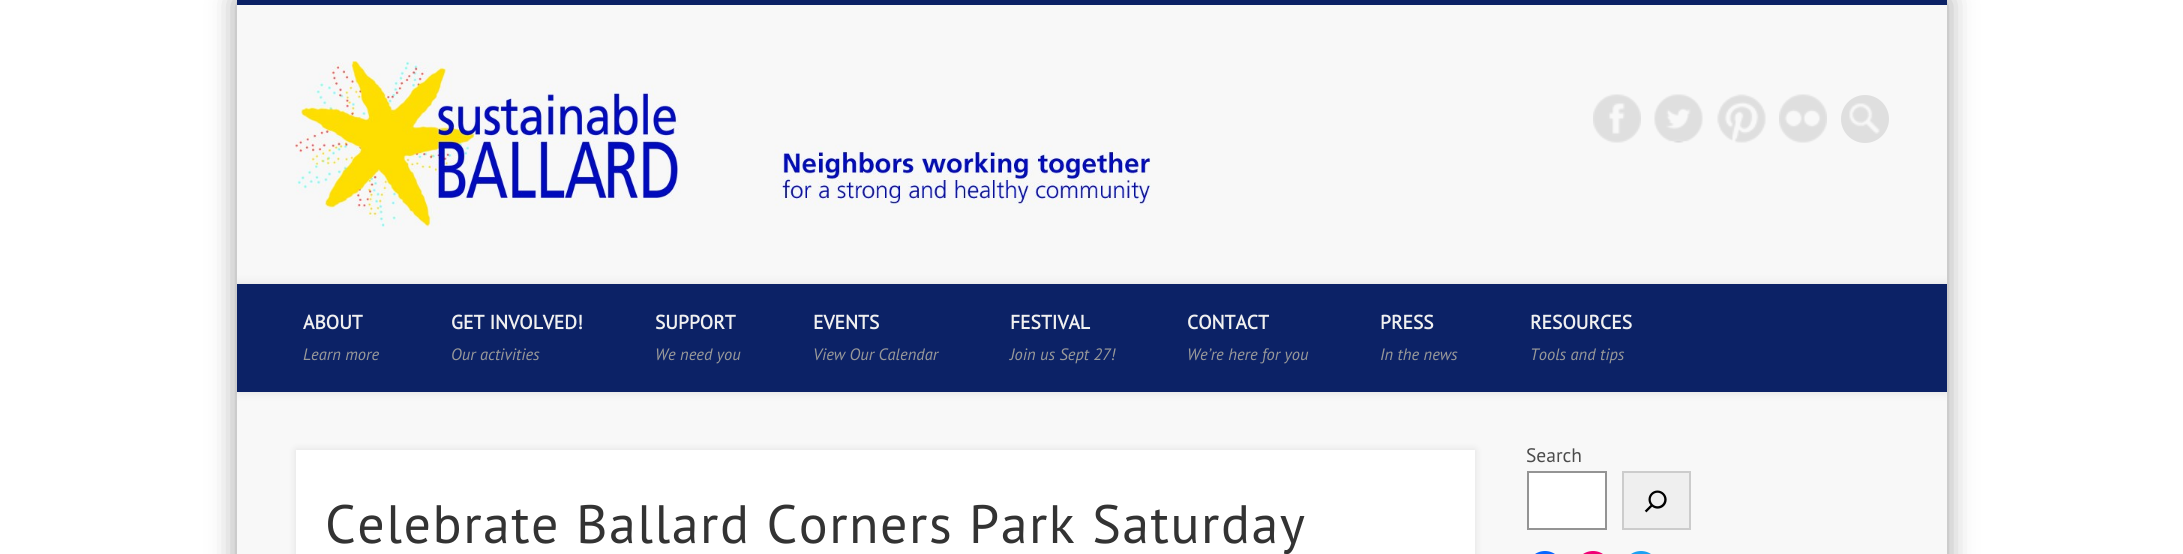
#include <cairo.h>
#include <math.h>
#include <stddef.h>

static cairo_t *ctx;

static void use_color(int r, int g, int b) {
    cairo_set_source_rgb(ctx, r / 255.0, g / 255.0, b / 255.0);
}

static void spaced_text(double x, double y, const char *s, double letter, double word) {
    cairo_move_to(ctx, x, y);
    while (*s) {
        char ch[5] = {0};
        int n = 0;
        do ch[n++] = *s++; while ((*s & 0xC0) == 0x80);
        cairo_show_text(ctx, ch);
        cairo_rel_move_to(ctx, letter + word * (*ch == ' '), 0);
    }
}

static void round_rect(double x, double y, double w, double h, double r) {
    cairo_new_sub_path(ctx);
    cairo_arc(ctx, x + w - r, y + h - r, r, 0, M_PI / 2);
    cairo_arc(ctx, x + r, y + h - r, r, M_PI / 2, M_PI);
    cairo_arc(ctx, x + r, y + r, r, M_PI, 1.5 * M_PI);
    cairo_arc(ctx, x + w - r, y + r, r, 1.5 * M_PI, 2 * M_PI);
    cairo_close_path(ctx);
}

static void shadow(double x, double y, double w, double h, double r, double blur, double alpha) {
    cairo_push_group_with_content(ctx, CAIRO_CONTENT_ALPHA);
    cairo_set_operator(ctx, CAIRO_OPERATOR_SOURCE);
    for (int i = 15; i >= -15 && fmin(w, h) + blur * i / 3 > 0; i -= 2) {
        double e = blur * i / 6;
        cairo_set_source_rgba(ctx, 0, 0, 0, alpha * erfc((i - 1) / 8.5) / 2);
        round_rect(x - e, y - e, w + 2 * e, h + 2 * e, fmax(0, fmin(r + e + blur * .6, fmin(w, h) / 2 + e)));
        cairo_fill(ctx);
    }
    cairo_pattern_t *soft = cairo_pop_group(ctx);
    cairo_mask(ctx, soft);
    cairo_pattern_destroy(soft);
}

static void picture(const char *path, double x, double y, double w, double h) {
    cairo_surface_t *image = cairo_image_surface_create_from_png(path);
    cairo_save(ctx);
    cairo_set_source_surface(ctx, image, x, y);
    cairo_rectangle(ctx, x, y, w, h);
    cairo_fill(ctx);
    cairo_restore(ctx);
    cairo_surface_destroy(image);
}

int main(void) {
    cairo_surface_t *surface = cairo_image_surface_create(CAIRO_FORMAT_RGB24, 2183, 554);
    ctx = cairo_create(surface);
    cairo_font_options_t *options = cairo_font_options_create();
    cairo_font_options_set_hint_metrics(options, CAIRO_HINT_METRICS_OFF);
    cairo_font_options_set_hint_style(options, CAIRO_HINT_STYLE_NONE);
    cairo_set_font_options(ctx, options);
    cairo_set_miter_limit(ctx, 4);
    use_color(255, 255, 255);
    cairo_paint(ctx);
    use_color(0, 0, 0);
    shadow(237, 0, 1710, 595, 0, 13.5, 0.4);
    use_color(248, 248, 248);
    cairo_rectangle(ctx, 237, 5, 1710, 549);
    cairo_fill(ctx);
    use_color(12, 34, 102);
    cairo_rectangle(ctx, 237, 0, 1710, 5);
    cairo_fill(ctx);
    picture("img1.png", 295, 61, 856, 166);
    picture("img2.png", 1593, 94, 48, 49);
    picture("img3.png", 1654, 94, 49, 49);
    picture("img4.png", 1717, 94, 49, 49);
    picture("img5.png", 1779, 94, 48, 49);
    use_color(223, 223, 223);
    cairo_arc(ctx, 1865, 119, 24, 0, 2 * M_PI);
    cairo_fill(ctx);
    picture("img6.png", 1849, 103, 31, 31);
    cairo_save(ctx);
    cairo_rectangle(ctx, 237, 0, 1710, 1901);
    cairo_clip(ctx);
    use_color(0, 0, 0);
    shadow(237, 284, 1710, 108, 0, 5, 0.1);
    cairo_restore(ctx);
    use_color(12, 34, 102);
    cairo_rectangle(ctx, 237, 284, 1710, 108);
    cairo_fill(ctx);
    cairo_select_font_face(ctx, "PT Sans", CAIRO_FONT_SLANT_NORMAL, CAIRO_FONT_WEIGHT_BOLD);
    cairo_set_font_size(ctx, 19.5);
    use_color(240, 240, 240);
    cairo_move_to(ctx, 303, 329);
    cairo_show_text(ctx, "ABOUT");
    cairo_select_font_face(ctx, "PT Sans", CAIRO_FONT_SLANT_ITALIC, CAIRO_FONT_WEIGHT_NORMAL);
    cairo_set_font_size(ctx, 16.5);
    use_color(153, 153, 153);
    cairo_move_to(ctx, 303, 360);
    cairo_show_text(ctx, "Learn more");
    cairo_select_font_face(ctx, "PT Sans", CAIRO_FONT_SLANT_NORMAL, CAIRO_FONT_WEIGHT_BOLD);
    cairo_set_font_size(ctx, 19.5);
    use_color(240, 240, 240);
    cairo_move_to(ctx, 451, 329);
    cairo_show_text(ctx, "GET INVOLVED!");
    cairo_select_font_face(ctx, "PT Sans", CAIRO_FONT_SLANT_ITALIC, CAIRO_FONT_WEIGHT_NORMAL);
    cairo_set_font_size(ctx, 16.5);
    use_color(153, 153, 153);
    cairo_move_to(ctx, 451, 360);
    cairo_show_text(ctx, "Our activities");
    cairo_select_font_face(ctx, "PT Sans", CAIRO_FONT_SLANT_NORMAL, CAIRO_FONT_WEIGHT_BOLD);
    cairo_set_font_size(ctx, 19.5);
    use_color(240, 240, 240);
    cairo_move_to(ctx, 655, 329);
    cairo_show_text(ctx, "SUPPORT");
    cairo_select_font_face(ctx, "PT Sans", CAIRO_FONT_SLANT_ITALIC, CAIRO_FONT_WEIGHT_NORMAL);
    cairo_set_font_size(ctx, 16.5);
    use_color(153, 153, 153);
    cairo_move_to(ctx, 655, 360);
    cairo_show_text(ctx, "We need you");
    cairo_select_font_face(ctx, "PT Sans", CAIRO_FONT_SLANT_NORMAL, CAIRO_FONT_WEIGHT_BOLD);
    cairo_set_font_size(ctx, 19.5);
    use_color(240, 240, 240);
    cairo_move_to(ctx, 813, 329);
    cairo_show_text(ctx, "EVENTS");
    cairo_select_font_face(ctx, "PT Sans", CAIRO_FONT_SLANT_ITALIC, CAIRO_FONT_WEIGHT_NORMAL);
    cairo_set_font_size(ctx, 16.5);
    use_color(153, 153, 153);
    cairo_move_to(ctx, 813, 360);
    cairo_show_text(ctx, "View Our Calendar");
    cairo_select_font_face(ctx, "PT Sans", CAIRO_FONT_SLANT_NORMAL, CAIRO_FONT_WEIGHT_BOLD);
    cairo_set_font_size(ctx, 19.5);
    use_color(240, 240, 240);
    cairo_move_to(ctx, 1010, 329);
    cairo_show_text(ctx, "FESTIVAL");
    cairo_select_font_face(ctx, "PT Sans", CAIRO_FONT_SLANT_ITALIC, CAIRO_FONT_WEIGHT_NORMAL);
    cairo_set_font_size(ctx, 16.5);
    use_color(153, 153, 153);
    cairo_move_to(ctx, 1010, 360);
    cairo_show_text(ctx, "Join us Sept 27!");
    cairo_select_font_face(ctx, "PT Sans", CAIRO_FONT_SLANT_NORMAL, CAIRO_FONT_WEIGHT_BOLD);
    cairo_set_font_size(ctx, 19.5);
    use_color(240, 240, 240);
    cairo_move_to(ctx, 1187, 329);
    cairo_show_text(ctx, "CONTACT");
    cairo_select_font_face(ctx, "PT Sans", CAIRO_FONT_SLANT_ITALIC, CAIRO_FONT_WEIGHT_NORMAL);
    cairo_set_font_size(ctx, 16.5);
    use_color(153, 153, 153);
    cairo_move_to(ctx, 1187, 360);
    cairo_show_text(ctx, "We’re here for you");
    cairo_select_font_face(ctx, "PT Sans", CAIRO_FONT_SLANT_NORMAL, CAIRO_FONT_WEIGHT_BOLD);
    cairo_set_font_size(ctx, 19.5);
    use_color(240, 240, 240);
    cairo_move_to(ctx, 1380, 329);
    cairo_show_text(ctx, "PRESS");
    cairo_select_font_face(ctx, "PT Sans", CAIRO_FONT_SLANT_ITALIC, CAIRO_FONT_WEIGHT_NORMAL);
    cairo_set_font_size(ctx, 16.5);
    use_color(153, 153, 153);
    cairo_move_to(ctx, 1380, 360);
    cairo_show_text(ctx, "In the news");
    cairo_select_font_face(ctx, "PT Sans", CAIRO_FONT_SLANT_NORMAL, CAIRO_FONT_WEIGHT_BOLD);
    cairo_set_font_size(ctx, 19.5);
    use_color(240, 240, 240);
    cairo_move_to(ctx, 1530, 329);
    cairo_show_text(ctx, "RESOURCES");
    cairo_select_font_face(ctx, "PT Sans", CAIRO_FONT_SLANT_ITALIC, CAIRO_FONT_WEIGHT_NORMAL);
    cairo_set_font_size(ctx, 16.5);
    use_color(153, 153, 153);
    cairo_move_to(ctx, 1530, 360);
    cairo_show_text(ctx, "Tools and tips");
    cairo_select_font_face(ctx, "PT Sans", CAIRO_FONT_SLANT_NORMAL, CAIRO_FONT_WEIGHT_NORMAL);
    cairo_set_font_size(ctx, 19.5);
    use_color(76, 76, 76);
    cairo_move_to(ctx, 1526, 462);
    cairo_show_text(ctx, "Search");
    use_color(255, 255, 255);
    cairo_rectangle(ctx, 1528, 472, 78, 57);
    cairo_fill_preserve(ctx);
    use_color(148, 148, 148);
    cairo_stroke(ctx);
    use_color(239, 239, 239);
    cairo_rectangle(ctx, 1623, 472, 67, 57);
    cairo_fill_preserve(ctx);
    use_color(204, 204, 204);
    cairo_stroke(ctx);
    picture("img7.png", 1644, 490, 23, 23);
    use_color(8, 102, 255);
    round_rect(1527, 551, 36, 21, 18);
    cairo_fill(ctx);
    use_color(240, 0, 117);
    round_rect(1575, 551, 36, 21, 18);
    cairo_fill(ctx);
    use_color(29, 161, 242);
    round_rect(1623, 551, 36, 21, 18);
    cairo_fill(ctx);
    use_color(0, 0, 0);
    shadow(296, 450, 1179, 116, 0, 4, 0.1);
    use_color(255, 255, 255);
    cairo_rectangle(ctx, 296, 450, 1179, 104);
    cairo_fill(ctx);
    cairo_set_font_size(ctx, 54);
    use_color(51, 51, 51);
    spaced_text(325, 543, "Celebrate Ballard Corners Park Saturday", 1.5, 0);
    cairo_surface_write_to_png(surface, "result.png");
    cairo_font_options_destroy(options);
    cairo_destroy(ctx);
    cairo_surface_destroy(surface);
    return 0;
}
